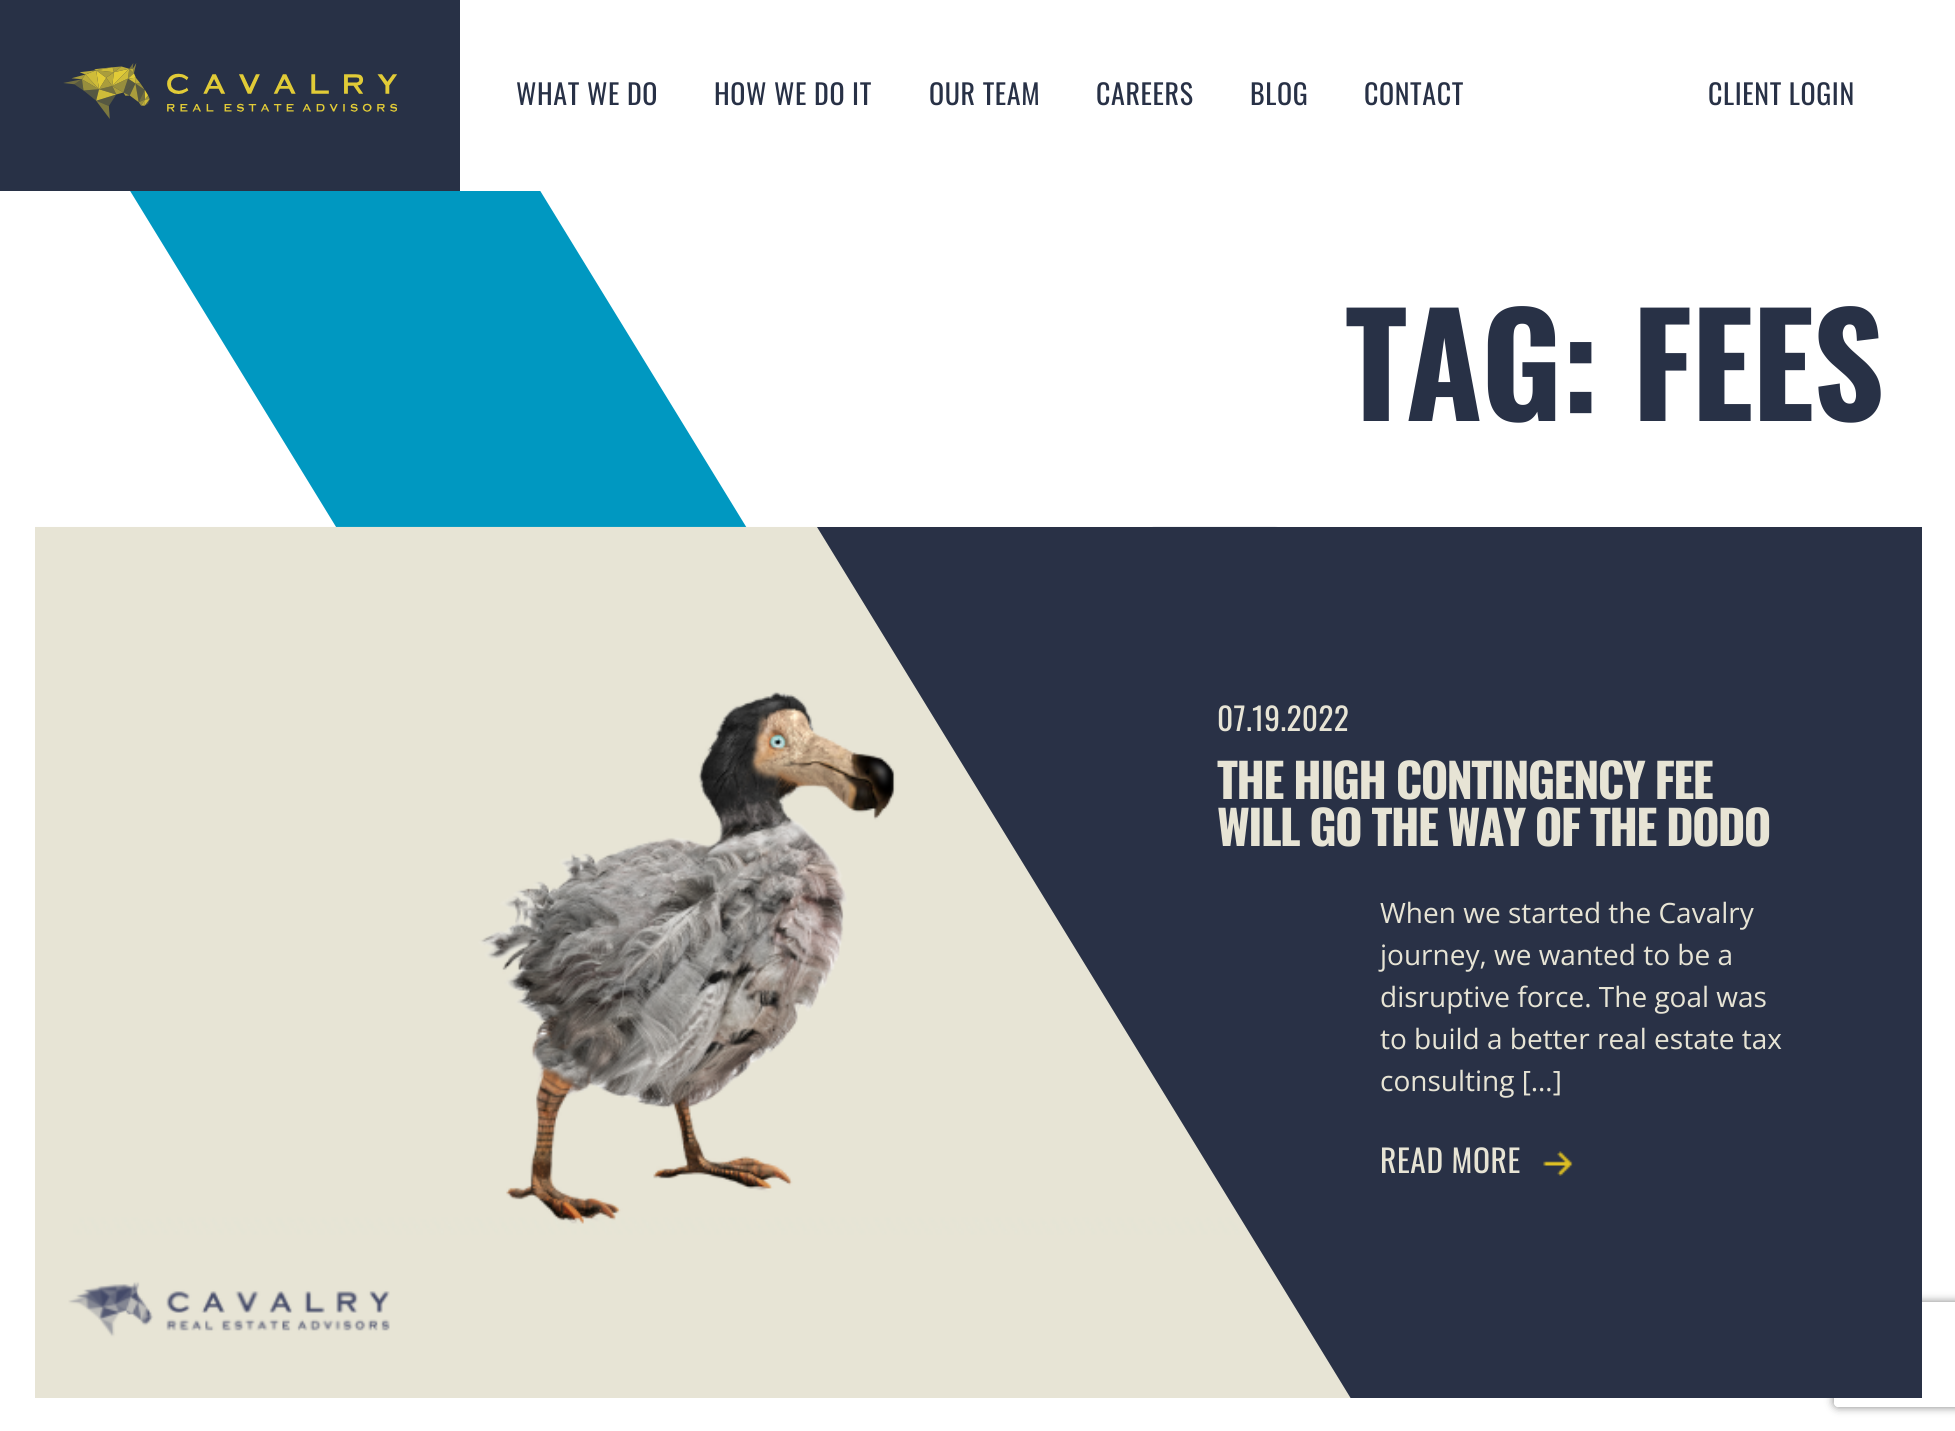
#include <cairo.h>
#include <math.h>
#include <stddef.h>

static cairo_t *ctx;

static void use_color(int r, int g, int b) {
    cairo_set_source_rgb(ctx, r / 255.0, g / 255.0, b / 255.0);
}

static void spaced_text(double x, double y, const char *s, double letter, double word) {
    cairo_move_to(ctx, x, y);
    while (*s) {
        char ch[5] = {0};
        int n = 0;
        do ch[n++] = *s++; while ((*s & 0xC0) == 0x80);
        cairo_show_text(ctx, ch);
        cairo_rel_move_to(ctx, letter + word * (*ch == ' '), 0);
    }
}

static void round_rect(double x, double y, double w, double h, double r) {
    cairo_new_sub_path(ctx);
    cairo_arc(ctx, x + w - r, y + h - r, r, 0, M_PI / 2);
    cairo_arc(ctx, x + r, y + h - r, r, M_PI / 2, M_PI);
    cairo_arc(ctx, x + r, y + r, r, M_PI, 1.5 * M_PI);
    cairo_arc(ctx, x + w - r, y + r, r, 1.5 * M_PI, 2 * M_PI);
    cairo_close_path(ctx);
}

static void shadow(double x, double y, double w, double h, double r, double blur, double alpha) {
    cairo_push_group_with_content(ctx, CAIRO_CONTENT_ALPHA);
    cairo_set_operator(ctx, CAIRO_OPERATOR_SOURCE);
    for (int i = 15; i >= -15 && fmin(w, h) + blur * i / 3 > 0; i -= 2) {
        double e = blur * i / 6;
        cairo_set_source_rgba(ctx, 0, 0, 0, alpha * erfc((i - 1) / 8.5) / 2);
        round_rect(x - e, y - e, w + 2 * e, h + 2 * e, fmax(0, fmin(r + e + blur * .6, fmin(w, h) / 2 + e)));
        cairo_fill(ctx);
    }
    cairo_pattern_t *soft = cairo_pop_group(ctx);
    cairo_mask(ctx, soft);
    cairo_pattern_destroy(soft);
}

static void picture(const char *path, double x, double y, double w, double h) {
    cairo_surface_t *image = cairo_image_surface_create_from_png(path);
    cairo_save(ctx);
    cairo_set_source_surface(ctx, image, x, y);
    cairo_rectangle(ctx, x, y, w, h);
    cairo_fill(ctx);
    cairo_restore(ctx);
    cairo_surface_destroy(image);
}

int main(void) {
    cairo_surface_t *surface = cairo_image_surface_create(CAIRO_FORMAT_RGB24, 1955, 1431);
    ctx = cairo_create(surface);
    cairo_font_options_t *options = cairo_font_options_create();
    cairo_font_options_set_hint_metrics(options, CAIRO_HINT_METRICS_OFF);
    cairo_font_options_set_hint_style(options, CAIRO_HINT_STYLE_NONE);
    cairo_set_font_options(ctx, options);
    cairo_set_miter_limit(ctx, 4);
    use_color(255, 255, 255);
    cairo_paint(ctx);
    use_color(40, 49, 70);
    cairo_rectangle(ctx, 0, 0, 460, 191);
    cairo_fill(ctx);
    picture("img1.png", 63, 63, 334, 56);
    cairo_select_font_face(ctx, "Oswald", CAIRO_FONT_SLANT_NORMAL, CAIRO_FONT_WEIGHT_NORMAL);
    cairo_set_font_size(ctx, 28);
    spaced_text(516, 105, "WHAT WE DO", 0.6, 0);
    spaced_text(714, 105, "HOW WE DO IT", 0.6, 0);
    spaced_text(929, 105, "OUR TEAM", 0.6, 0);
    spaced_text(1096, 105, "CAREERS", 0.6, 0);
    spaced_text(1250, 105, "BLOG", 0.6, 0);
    spaced_text(1364, 105, "CONTACT", 0.6, 0);
    spaced_text(1708, 105, "CLIENT LOGIN", 0.6, 0);
    cairo_save(ctx);
    cairo_rectangle(ctx, 35, 191, 1887, 336);
    cairo_clip(ctx);
    use_color(0, 152, 193);
    cairo_new_path(ctx);
    cairo_move_to(ctx, 938, 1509);
    cairo_line_to(ctx, -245, -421);
    cairo_line_to(ctx, 53, -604);
    cairo_line_to(ctx, 1236, 1326);
    cairo_close_path(ctx);
    cairo_fill(ctx);
    cairo_restore(ctx);
    cairo_select_font_face(ctx, "Oswald", CAIRO_FONT_SLANT_NORMAL, CAIRO_FONT_WEIGHT_BOLD);
    cairo_set_font_size(ctx, 140);
    spaced_text(1345, 421, "TAG: FEES", -1.75, 0);
    picture("img2.png", 35, 526, 1321, 872);
    cairo_save(ctx);
    cairo_set_fill_rule(ctx, CAIRO_FILL_RULE_EVEN_ODD);
    cairo_new_path(ctx);
    cairo_move_to(ctx, 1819, 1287);
    cairo_line_to(ctx, 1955, 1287);
    cairo_line_to(ctx, 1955, 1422);
    cairo_line_to(ctx, 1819, 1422);
    cairo_close_path(ctx);
    cairo_move_to(ctx, 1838, 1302);
    cairo_line_to(ctx, 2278, 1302);
    cairo_curve_to(ctx, 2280, 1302, 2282, 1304, 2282, 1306);
    cairo_line_to(ctx, 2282, 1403);
    cairo_curve_to(ctx, 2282, 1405, 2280, 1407, 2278, 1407);
    cairo_line_to(ctx, 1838, 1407);
    cairo_curve_to(ctx, 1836, 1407, 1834, 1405, 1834, 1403);
    cairo_line_to(ctx, 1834, 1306);
    cairo_curve_to(ctx, 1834, 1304, 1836, 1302, 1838, 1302);
    cairo_close_path(ctx);
    cairo_clip(ctx);
    use_color(128, 128, 128);
    shadow(1834, 1302, 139, 105, 4, 4.5, 1);
    cairo_restore(ctx);
    cairo_save(ctx);
    cairo_rectangle(ctx, 35, 527, 1887, 871);
    cairo_clip(ctx);
    use_color(41, 49, 70);
    cairo_new_path(ctx);
    cairo_move_to(ctx, 700, 336);
    cairo_line_to(ctx, 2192, -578);
    cairo_line_to(ctx, 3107, 914);
    cairo_line_to(ctx, 1614, 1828);
    cairo_close_path(ctx);
    cairo_fill(ctx);
    cairo_restore(ctx);
    cairo_select_font_face(ctx, "Oswald", CAIRO_FONT_SLANT_NORMAL, CAIRO_FONT_WEIGHT_NORMAL);
    cairo_set_font_size(ctx, 31.5);
    use_color(231, 228, 213);
    spaced_text(1217, 731, "07.19.2022", 0.25, 0);
    cairo_select_font_face(ctx, "Oswald", CAIRO_FONT_SLANT_NORMAL, CAIRO_FONT_WEIGHT_BOLD);
    cairo_set_font_size(ctx, 47.25);
    spaced_text(1217, 799, "THE HIGH CONTINGENCY FEE", -1.75, 0);
    spaced_text(1217, 846, "WILL GO THE WAY OF THE DODO", -1.75, 0);
    cairo_select_font_face(ctx, "Open Sans", CAIRO_FONT_SLANT_NORMAL, CAIRO_FONT_WEIGHT_NORMAL);
    cairo_set_font_size(ctx, 28);
    cairo_move_to(ctx, 1380, 923);
    cairo_show_text(ctx, "When we started the Cavalry");
    cairo_move_to(ctx, 1380, 965);
    cairo_show_text(ctx, "journey, we wanted to be a");
    cairo_move_to(ctx, 1380, 1007);
    cairo_show_text(ctx, "disruptive force. The goal was");
    cairo_move_to(ctx, 1380, 1049);
    cairo_show_text(ctx, "to build a better real estate tax");
    cairo_move_to(ctx, 1380, 1091);
    cairo_show_text(ctx, "consulting […]");
    cairo_select_font_face(ctx, "Oswald", CAIRO_FONT_SLANT_NORMAL, CAIRO_FONT_WEIGHT_NORMAL);
    cairo_set_font_size(ctx, 31.5);
    spaced_text(1380, 1173, "READ MORE", 0.6, 0);
    picture("img3.png", 1543, 1151, 30, 25);
    cairo_surface_write_to_png(surface, "result.png");
    cairo_font_options_destroy(options);
    cairo_destroy(ctx);
    cairo_surface_destroy(surface);
    return 0;
}
